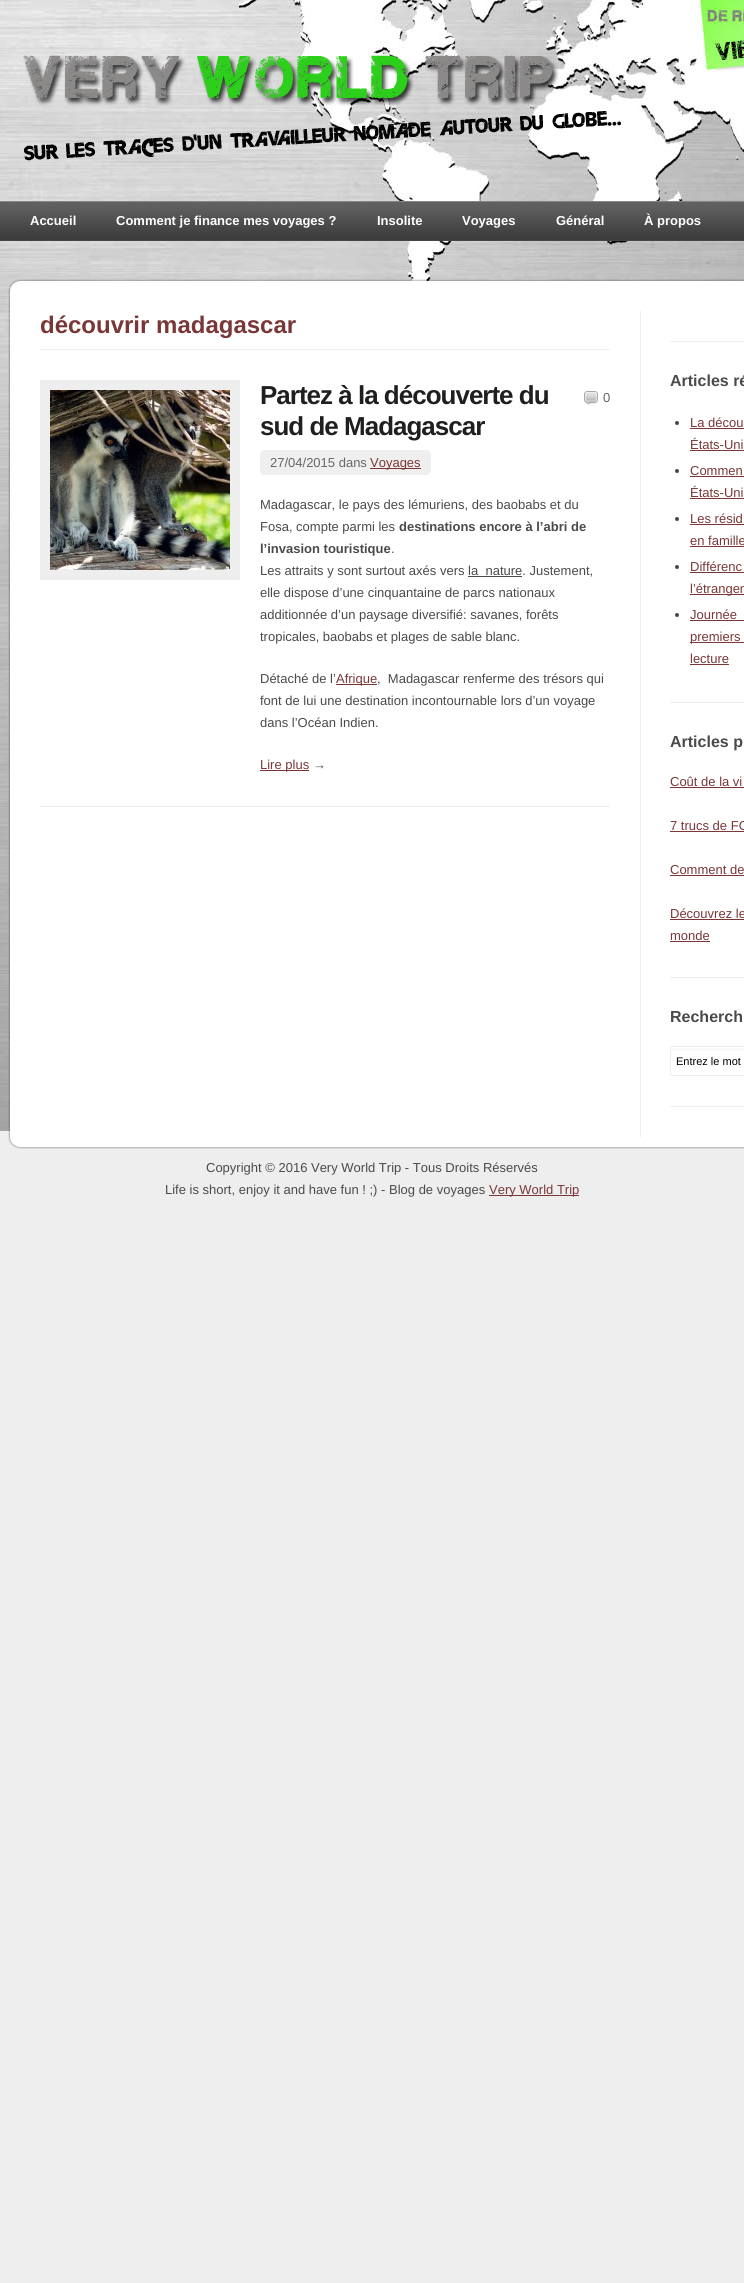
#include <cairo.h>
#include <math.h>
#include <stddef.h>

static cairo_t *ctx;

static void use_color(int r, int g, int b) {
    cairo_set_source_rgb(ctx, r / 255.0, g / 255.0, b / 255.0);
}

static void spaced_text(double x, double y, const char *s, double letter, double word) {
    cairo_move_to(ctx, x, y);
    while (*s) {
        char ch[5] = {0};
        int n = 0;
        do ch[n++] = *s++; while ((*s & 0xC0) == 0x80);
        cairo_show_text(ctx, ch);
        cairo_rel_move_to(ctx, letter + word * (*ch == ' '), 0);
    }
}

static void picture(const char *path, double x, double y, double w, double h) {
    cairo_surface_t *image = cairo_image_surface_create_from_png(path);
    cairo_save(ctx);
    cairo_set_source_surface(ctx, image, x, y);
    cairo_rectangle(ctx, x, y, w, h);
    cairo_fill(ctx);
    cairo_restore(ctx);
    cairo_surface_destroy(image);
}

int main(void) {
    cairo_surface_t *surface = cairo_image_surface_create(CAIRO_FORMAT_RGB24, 744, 2283);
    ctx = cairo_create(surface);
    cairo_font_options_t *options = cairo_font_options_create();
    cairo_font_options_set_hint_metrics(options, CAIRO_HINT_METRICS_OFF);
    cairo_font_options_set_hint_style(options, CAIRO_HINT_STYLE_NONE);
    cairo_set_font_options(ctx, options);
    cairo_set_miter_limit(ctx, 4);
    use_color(238, 238, 238);
    cairo_paint(ctx);
    picture("img1.png", 0, 0, 744, 1131);
    picture("img2.png", 0, 35, 176, 65);
    picture("img3.png", 23, 55, 598, 106);
    picture("img4.png", 0, 201, 744, 40);
    cairo_select_font_face(ctx, "Liberation Sans", CAIRO_FONT_SLANT_NORMAL, CAIRO_FONT_WEIGHT_BOLD);
    cairo_set_font_size(ctx, 13);
    use_color(255, 255, 255);
    cairo_move_to(ctx, 30, 225);
    cairo_show_text(ctx, "Accueil");
    cairo_move_to(ctx, 116, 225);
    cairo_show_text(ctx, "Comment je finance mes voyages ?");
    cairo_move_to(ctx, 377, 225);
    cairo_show_text(ctx, "Insolite");
    cairo_move_to(ctx, 462, 225);
    cairo_show_text(ctx, "Voyages");
    cairo_move_to(ctx, 556, 225);
    cairo_show_text(ctx, "Général");
    cairo_move_to(ctx, 644, 225);
    cairo_show_text(ctx, "À propos");
    picture("img5.png", 8, 279, 736, 12);
    picture("img6.png", 8, 291, 736, 846);
    use_color(238, 238, 233);
    cairo_rectangle(ctx, 640, 311, 1, 826);
    cairo_fill(ctx);
    use_color(238, 238, 238);
    cairo_rectangle(ctx, 40, 349, 570, 1);
    cairo_fill(ctx);
    cairo_set_font_size(ctx, 24);
    use_color(122, 55, 55);
    cairo_move_to(ctx, 40, 333);
    cairo_show_text(ctx, "découvrir madagascar");
    use_color(238, 238, 238);
    cairo_rectangle(ctx, 40, 806, 570, 1);
    cairo_fill(ctx);
    cairo_rectangle(ctx, 40, 380, 200, 200);
    cairo_fill(ctx);
    picture("img7.png", 50, 390, 180, 180);
    cairo_set_font_size(ctx, 26);
    use_color(31, 31, 31);
    spaced_text(260, 404, "Partez à la découverte du", -1, 0);
    spaced_text(260, 435, "sud de Madagascar", -1, 0);
    picture("img8.png", 584, 391, 14, 14);
    cairo_select_font_face(ctx, "Liberation Sans", CAIRO_FONT_SLANT_NORMAL, CAIRO_FONT_WEIGHT_NORMAL);
    cairo_set_font_size(ctx, 13);
    use_color(102, 102, 102);
    cairo_move_to(ctx, 603, 402);
    cairo_show_text(ctx, "0");
    use_color(239, 239, 239);
    cairo_new_path(ctx);
    cairo_move_to(ctx, 265, 450);
    cairo_line_to(ctx, 370, 450);
    cairo_line_to(ctx, 370, 475);
    cairo_line_to(ctx, 265, 475);
    cairo_curve_to(ctx, 262, 475, 260, 473, 260, 470);
    cairo_line_to(ctx, 260, 455);
    cairo_curve_to(ctx, 260, 452, 262, 450, 265, 450);
    cairo_close_path(ctx);
    cairo_fill(ctx);
    use_color(102, 102, 102);
    cairo_move_to(ctx, 270, 467);
    cairo_show_text(ctx, "27/04/2015 dans");
    use_color(239, 239, 239);
    cairo_new_path(ctx);
    cairo_move_to(ctx, 370, 450);
    cairo_line_to(ctx, 426, 450);
    cairo_curve_to(ctx, 429, 450, 431, 452, 431, 455);
    cairo_line_to(ctx, 431, 470);
    cairo_curve_to(ctx, 431, 473, 429, 475, 426, 475);
    cairo_line_to(ctx, 370, 475);
    cairo_close_path(ctx);
    cairo_fill(ctx);
    use_color(122, 55, 55);
    cairo_rectangle(ctx, 370, 468, 51, 1);
    cairo_fill(ctx);
    cairo_move_to(ctx, 370, 467);
    cairo_show_text(ctx, "Voyages");
    use_color(74, 74, 74);
    cairo_move_to(ctx, 260, 509);
    cairo_show_text(ctx, "Madagascar, le pays des lémuriens, des baobabs et du");
    cairo_move_to(ctx, 260, 531);
    cairo_show_text(ctx, "Fosa, compte parmi les");
    cairo_select_font_face(ctx, "Liberation Sans", CAIRO_FONT_SLANT_NORMAL, CAIRO_FONT_WEIGHT_BOLD);
    cairo_move_to(ctx, 399, 531);
    cairo_show_text(ctx, "destinations encore à l’abri de");
    cairo_move_to(ctx, 260, 553);
    cairo_show_text(ctx, "l’invasion touristique");
    cairo_select_font_face(ctx, "Liberation Sans", CAIRO_FONT_SLANT_NORMAL, CAIRO_FONT_WEIGHT_NORMAL);
    cairo_move_to(ctx, 391, 553);
    cairo_show_text(ctx, ".");
    cairo_move_to(ctx, 260, 575);
    cairo_show_text(ctx, "Les attraits y sont surtout axés vers la  nature. Justement,");
    cairo_rectangle(ctx, 468, 576, 54, 1);
    cairo_fill(ctx);
    cairo_move_to(ctx, 260, 597);
    cairo_show_text(ctx, "elle dispose d’une cinquantaine de parcs nationaux");
    cairo_move_to(ctx, 260, 619);
    cairo_show_text(ctx, "additionnée d’un paysage diversifié: savanes, forêts");
    cairo_move_to(ctx, 260, 641);
    cairo_show_text(ctx, "tropicales, baobabs et plages de sable blanc.");
    cairo_move_to(ctx, 260, 683);
    cairo_show_text(ctx, "Détaché de l’");
    use_color(122, 55, 55);
    cairo_rectangle(ctx, 336, 684, 41, 1);
    cairo_fill(ctx);
    cairo_move_to(ctx, 336, 683);
    cairo_show_text(ctx, "Afrique");
    use_color(74, 74, 74);
    cairo_move_to(ctx, 377, 683);
    cairo_show_text(ctx, ",  Madagascar renferme des trésors qui");
    cairo_move_to(ctx, 260, 705);
    cairo_show_text(ctx, "font de lui une destination incontournable lors d’un voyage");
    cairo_move_to(ctx, 260, 727);
    cairo_show_text(ctx, "dans l’Océan Indien.");
    use_color(122, 55, 55);
    cairo_rectangle(ctx, 260, 770, 49, 1);
    cairo_fill(ctx);
    cairo_move_to(ctx, 260, 769);
    cairo_show_text(ctx, "Lire plus");
    use_color(74, 74, 74);
    cairo_move_to(ctx, 313, 769);
    cairo_show_text(ctx, "→");
    use_color(238, 238, 238);
    cairo_rectangle(ctx, 670, 341, 74, 1);
    cairo_fill(ctx);
    cairo_rectangle(ctx, 670, 702, 74, 1);
    cairo_fill(ctx);
    cairo_select_font_face(ctx, "Liberation Sans", CAIRO_FONT_SLANT_NORMAL, CAIRO_FONT_WEIGHT_BOLD);
    cairo_set_font_size(ctx, 16);
    use_color(74, 74, 74);
    cairo_move_to(ctx, 670, 386);
    cairo_show_text(ctx, "Articles ré");
    cairo_new_path(ctx);
    cairo_arc(ctx, 677, 423, 2, 0, 2 * M_PI);
    cairo_fill(ctx);
    cairo_select_font_face(ctx, "Liberation Sans", CAIRO_FONT_SLANT_NORMAL, CAIRO_FONT_WEIGHT_NORMAL);
    cairo_set_font_size(ctx, 13);
    use_color(122, 55, 55);
    cairo_move_to(ctx, 690, 427);
    cairo_show_text(ctx, "La décou");
    cairo_rectangle(ctx, 690, 428, 54, 1);
    cairo_fill(ctx);
    cairo_move_to(ctx, 690, 449);
    cairo_show_text(ctx, "États-Uni");
    cairo_rectangle(ctx, 690, 450, 54, 1);
    cairo_fill(ctx);
    use_color(74, 74, 74);
    cairo_arc(ctx, 677, 471, 2, 0, 2 * M_PI);
    cairo_fill(ctx);
    use_color(122, 55, 55);
    cairo_move_to(ctx, 690, 475);
    cairo_show_text(ctx, "Commen");
    cairo_rectangle(ctx, 690, 476, 54, 1);
    cairo_fill(ctx);
    cairo_move_to(ctx, 690, 497);
    cairo_show_text(ctx, "États-Uni");
    cairo_rectangle(ctx, 690, 498, 54, 1);
    cairo_fill(ctx);
    use_color(74, 74, 74);
    cairo_arc(ctx, 677, 519, 2, 0, 2 * M_PI);
    cairo_fill(ctx);
    use_color(122, 55, 55);
    cairo_move_to(ctx, 690, 523);
    cairo_show_text(ctx, "Les résid");
    cairo_rectangle(ctx, 690, 524, 54, 1);
    cairo_fill(ctx);
    cairo_move_to(ctx, 690, 545);
    cairo_show_text(ctx, "en famille");
    cairo_rectangle(ctx, 690, 546, 54, 1);
    cairo_fill(ctx);
    use_color(74, 74, 74);
    cairo_arc(ctx, 677, 567, 2, 0, 2 * M_PI);
    cairo_fill(ctx);
    use_color(122, 55, 55);
    cairo_move_to(ctx, 690, 571);
    cairo_show_text(ctx, "Différenc");
    cairo_rectangle(ctx, 690, 572, 54, 1);
    cairo_fill(ctx);
    cairo_rectangle(ctx, 690, 594, 54, 1);
    cairo_fill(ctx);
    cairo_move_to(ctx, 690, 593);
    cairo_show_text(ctx, "l’étranger");
    use_color(74, 74, 74);
    cairo_new_path(ctx);
    cairo_arc(ctx, 677, 615, 2, 0, 2 * M_PI);
    cairo_fill(ctx);
    use_color(122, 55, 55);
    cairo_move_to(ctx, 690, 619);
    cairo_show_text(ctx, "Journée");
    cairo_rectangle(ctx, 690, 620, 54, 1);
    cairo_fill(ctx);
    cairo_rectangle(ctx, 690, 642, 54, 1);
    cairo_fill(ctx);
    cairo_move_to(ctx, 690, 641);
    cairo_show_text(ctx, "premiers");
    cairo_move_to(ctx, 690, 663);
    cairo_show_text(ctx, "lecture");
    cairo_rectangle(ctx, 690, 664, 39, 1);
    cairo_fill(ctx);
    use_color(238, 238, 238);
    cairo_rectangle(ctx, 670, 977, 74, 1);
    cairo_fill(ctx);
    cairo_select_font_face(ctx, "Liberation Sans", CAIRO_FONT_SLANT_NORMAL, CAIRO_FONT_WEIGHT_BOLD);
    cairo_set_font_size(ctx, 16);
    use_color(74, 74, 74);
    cairo_move_to(ctx, 670, 747);
    cairo_show_text(ctx, "Articles p");
    cairo_select_font_face(ctx, "Liberation Sans", CAIRO_FONT_SLANT_NORMAL, CAIRO_FONT_WEIGHT_NORMAL);
    cairo_set_font_size(ctx, 13);
    use_color(122, 55, 55);
    cairo_move_to(ctx, 670, 786);
    cairo_show_text(ctx, "Coût de la vi");
    cairo_rectangle(ctx, 670, 787, 74, 1);
    cairo_fill(ctx);
    cairo_move_to(ctx, 670, 830);
    cairo_show_text(ctx, "7 trucs de FO");
    cairo_rectangle(ctx, 670, 831, 74, 1);
    cairo_fill(ctx);
    cairo_move_to(ctx, 670, 874);
    cairo_show_text(ctx, "Comment de");
    cairo_rectangle(ctx, 670, 875, 74, 1);
    cairo_fill(ctx);
    cairo_move_to(ctx, 670, 918);
    cairo_show_text(ctx, "Découvrez le");
    cairo_rectangle(ctx, 670, 919, 74, 1);
    cairo_fill(ctx);
    cairo_move_to(ctx, 670, 940);
    cairo_show_text(ctx, "monde");
    cairo_rectangle(ctx, 670, 941, 40, 1);
    cairo_fill(ctx);
    use_color(238, 238, 238);
    cairo_rectangle(ctx, 670, 1106, 74, 1);
    cairo_fill(ctx);
    cairo_select_font_face(ctx, "Liberation Sans", CAIRO_FONT_SLANT_NORMAL, CAIRO_FONT_WEIGHT_BOLD);
    cairo_set_font_size(ctx, 16);
    use_color(74, 74, 74);
    cairo_move_to(ctx, 670, 1022);
    cairo_show_text(ctx, "Recherch");
    use_color(250, 250, 250);
    cairo_rectangle(ctx, 670, 1048, 74, 3);
    cairo_fill(ctx);
    cairo_rectangle(ctx, 670.5, 1046.5, 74, 29);
    use_color(238, 238, 238);
    cairo_set_line_width(ctx, 1);
    cairo_stroke(ctx);
    cairo_select_font_face(ctx, "Liberation Sans", CAIRO_FONT_SLANT_NORMAL, CAIRO_FONT_WEIGHT_NORMAL);
    cairo_set_font_size(ctx, 11);
    use_color(0, 0, 0);
    cairo_move_to(ctx, 676, 1065);
    cairo_show_text(ctx, "Entrez le mot");
    picture("img9.png", 8, 1137, 736, 12);
    cairo_set_font_size(ctx, 13);
    use_color(74, 74, 74);
    cairo_move_to(ctx, 206, 1172);
    cairo_show_text(ctx, "Copyright © 2016 Very World Trip - Tous Droits Réservés");
    cairo_move_to(ctx, 165, 1194);
    cairo_show_text(ctx, "Life is short, enjoy it and have fun ! ;) - Blog de voyages");
    use_color(122, 55, 55);
    cairo_rectangle(ctx, 489, 1195, 90, 1);
    cairo_fill(ctx);
    cairo_move_to(ctx, 489, 1194);
    cairo_show_text(ctx, "Very World Trip");
    cairo_surface_write_to_png(surface, "result.png");
    cairo_font_options_destroy(options);
    cairo_destroy(ctx);
    cairo_surface_destroy(surface);
    return 0;
}
